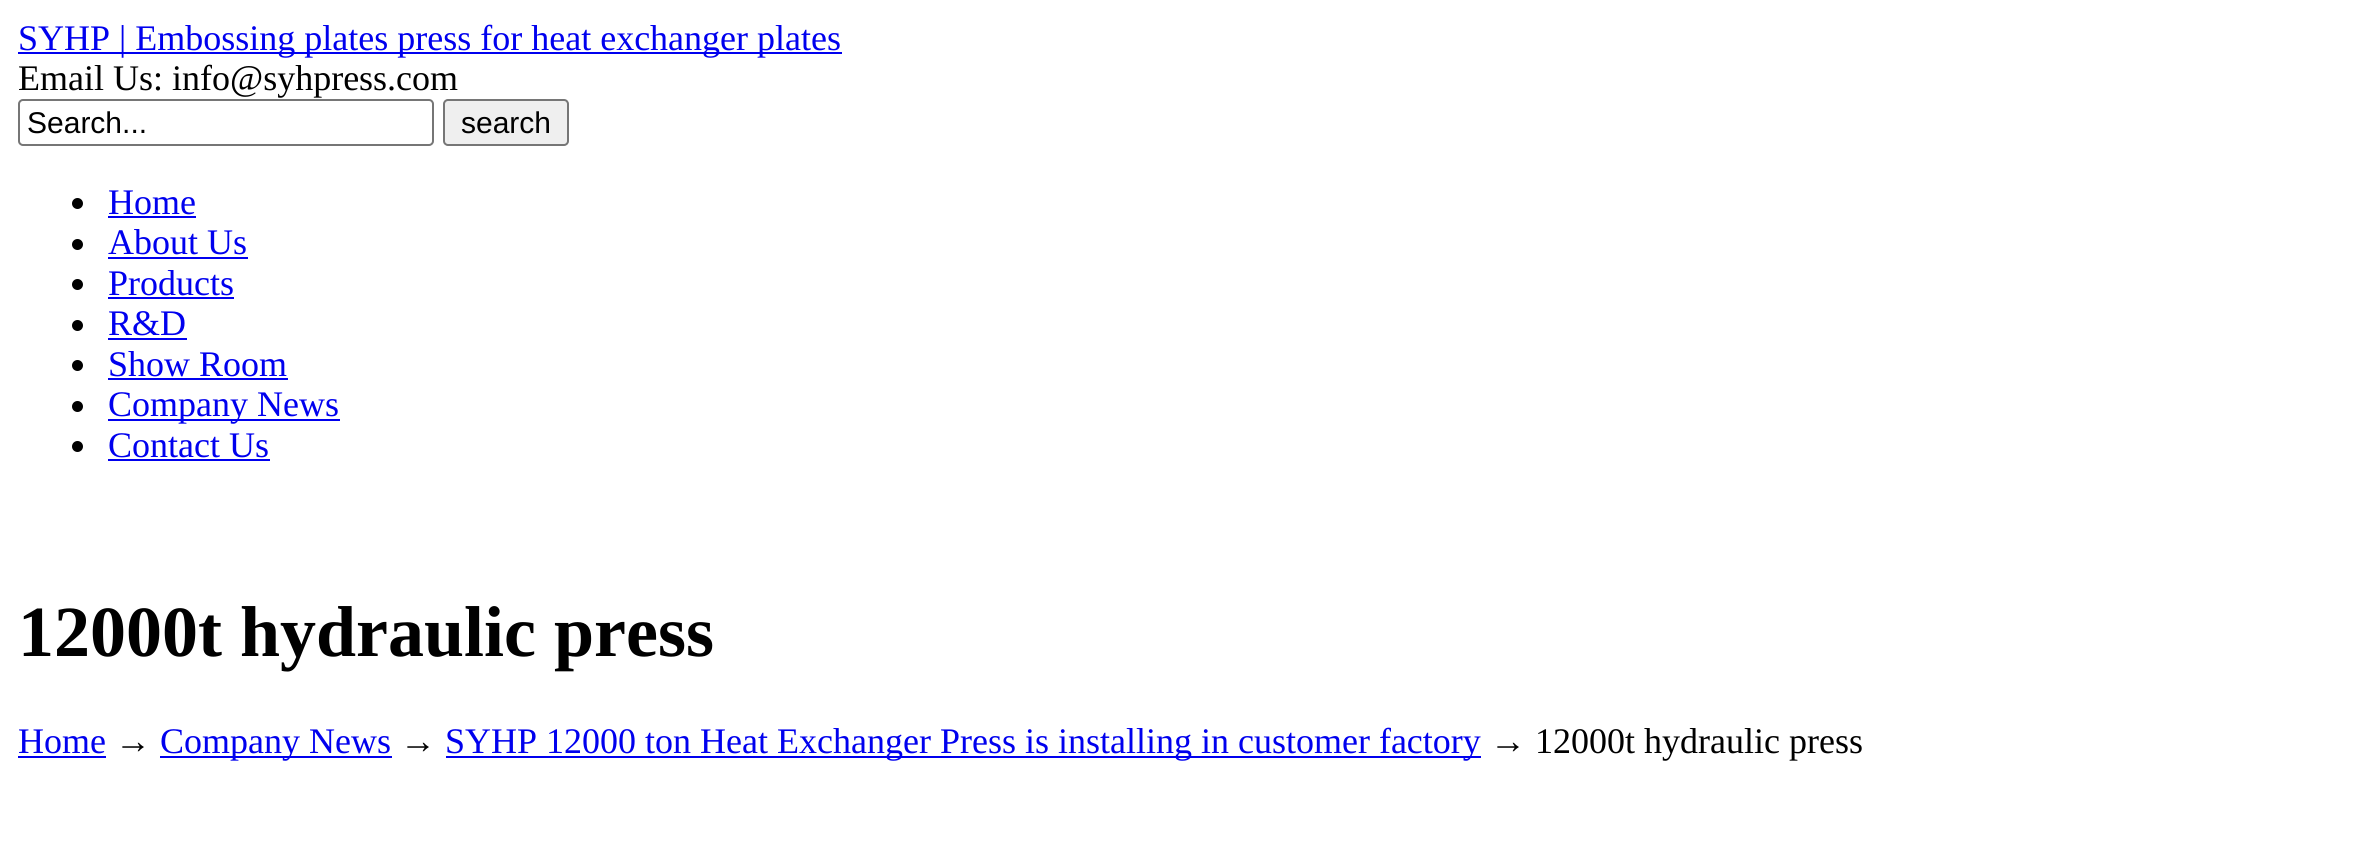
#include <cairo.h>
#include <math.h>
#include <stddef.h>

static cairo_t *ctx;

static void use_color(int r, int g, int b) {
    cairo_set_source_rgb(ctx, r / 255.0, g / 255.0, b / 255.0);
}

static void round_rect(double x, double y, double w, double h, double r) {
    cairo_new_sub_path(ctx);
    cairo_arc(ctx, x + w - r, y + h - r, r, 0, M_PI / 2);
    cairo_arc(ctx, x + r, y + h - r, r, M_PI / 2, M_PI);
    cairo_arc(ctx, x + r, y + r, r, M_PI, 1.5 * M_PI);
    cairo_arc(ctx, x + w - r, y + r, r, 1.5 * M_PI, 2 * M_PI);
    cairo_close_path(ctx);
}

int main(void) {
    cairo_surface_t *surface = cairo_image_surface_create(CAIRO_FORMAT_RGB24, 2372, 868);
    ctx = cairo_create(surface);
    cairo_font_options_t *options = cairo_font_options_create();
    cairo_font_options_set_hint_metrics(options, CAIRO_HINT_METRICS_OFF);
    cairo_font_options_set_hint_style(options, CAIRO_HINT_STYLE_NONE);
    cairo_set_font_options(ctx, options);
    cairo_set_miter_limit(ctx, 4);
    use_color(255, 255, 255);
    cairo_paint(ctx);
    use_color(0, 0, 238);
    cairo_rectangle(ctx, 18, 52, 824, 2);
    cairo_fill(ctx);
    cairo_select_font_face(ctx, "Liberation Serif", CAIRO_FONT_SLANT_NORMAL, CAIRO_FONT_WEIGHT_NORMAL);
    cairo_set_font_size(ctx, 36);
    cairo_move_to(ctx, 18, 50);
    cairo_show_text(ctx, "SYHP | Embossing plates press for heat exchanger plates");
    use_color(0, 0, 0);
    cairo_move_to(ctx, 18, 90);
    cairo_show_text(ctx, "Email Us: info@syhpress.com");
    round_rect(19, 100, 414, 45, 4);
    use_color(118, 118, 118);
    cairo_stroke(ctx);
    cairo_select_font_face(ctx, "Liberation Sans", CAIRO_FONT_SLANT_NORMAL, CAIRO_FONT_WEIGHT_NORMAL);
    cairo_set_font_size(ctx, 30);
    use_color(0, 0, 0);
    cairo_move_to(ctx, 27, 133);
    cairo_show_text(ctx, "Search...");
    use_color(239, 239, 239);
    round_rect(444, 100, 124, 45, 4);
    cairo_fill_preserve(ctx);
    use_color(118, 118, 118);
    cairo_stroke(ctx);
    use_color(0, 0, 0);
    cairo_move_to(ctx, 461, 133);
    cairo_show_text(ctx, "search");
    cairo_new_path(ctx);
    cairo_arc(ctx, 77.5, 203.5, 5.5, 0, 2 * M_PI);
    cairo_fill(ctx);
    cairo_select_font_face(ctx, "Liberation Serif", CAIRO_FONT_SLANT_NORMAL, CAIRO_FONT_WEIGHT_NORMAL);
    cairo_set_font_size(ctx, 36);
    use_color(0, 0, 238);
    cairo_move_to(ctx, 108, 214);
    cairo_show_text(ctx, "Home");
    cairo_rectangle(ctx, 108, 216, 88, 2);
    cairo_fill(ctx);
    use_color(0, 0, 0);
    cairo_arc(ctx, 77.5, 244.5, 5.5, 0, 2 * M_PI);
    cairo_fill(ctx);
    use_color(0, 0, 238);
    cairo_move_to(ctx, 108, 254);
    cairo_show_text(ctx, "About Us");
    cairo_rectangle(ctx, 108, 257, 140, 2);
    cairo_fill(ctx);
    use_color(0, 0, 0);
    cairo_arc(ctx, 77.5, 284.5, 5.5, 0, 2 * M_PI);
    cairo_fill(ctx);
    use_color(0, 0, 238);
    cairo_move_to(ctx, 108, 295);
    cairo_show_text(ctx, "Products");
    cairo_rectangle(ctx, 108, 297, 126, 2);
    cairo_fill(ctx);
    use_color(0, 0, 0);
    cairo_arc(ctx, 77.5, 325.5, 5.5, 0, 2 * M_PI);
    cairo_fill(ctx);
    use_color(0, 0, 238);
    cairo_move_to(ctx, 108, 335);
    cairo_show_text(ctx, "R&D");
    cairo_rectangle(ctx, 108, 338, 79, 2);
    cairo_fill(ctx);
    use_color(0, 0, 0);
    cairo_arc(ctx, 77.5, 365.5, 5.5, 0, 2 * M_PI);
    cairo_fill(ctx);
    use_color(0, 0, 238);
    cairo_move_to(ctx, 108, 376);
    cairo_show_text(ctx, "Show Room");
    cairo_rectangle(ctx, 108, 378, 180, 2);
    cairo_fill(ctx);
    use_color(0, 0, 0);
    cairo_arc(ctx, 77.5, 406.5, 5.5, 0, 2 * M_PI);
    cairo_fill(ctx);
    use_color(0, 0, 238);
    cairo_rectangle(ctx, 108, 419, 232, 2);
    cairo_fill(ctx);
    cairo_move_to(ctx, 108, 416);
    cairo_show_text(ctx, "Company News");
    use_color(0, 0, 0);
    cairo_new_path(ctx);
    cairo_arc(ctx, 77.5, 446.5, 5.5, 0, 2 * M_PI);
    cairo_fill(ctx);
    use_color(0, 0, 238);
    cairo_move_to(ctx, 108, 457);
    cairo_show_text(ctx, "Contact Us");
    cairo_rectangle(ctx, 108, 459, 162, 2);
    cairo_fill(ctx);
    cairo_select_font_face(ctx, "Liberation Serif", CAIRO_FONT_SLANT_NORMAL, CAIRO_FONT_WEIGHT_BOLD);
    cairo_set_font_size(ctx, 72);
    use_color(0, 0, 0);
    cairo_move_to(ctx, 18, 656);
    cairo_show_text(ctx, "12000t hydraulic press");
    cairo_select_font_face(ctx, "Liberation Serif", CAIRO_FONT_SLANT_NORMAL, CAIRO_FONT_WEIGHT_NORMAL);
    cairo_set_font_size(ctx, 36);
    use_color(0, 0, 238);
    cairo_move_to(ctx, 18, 753);
    cairo_show_text(ctx, "Home");
    cairo_rectangle(ctx, 18, 756, 88, 2);
    cairo_fill(ctx);
    use_color(0, 0, 0);
    cairo_move_to(ctx, 115, 753);
    cairo_show_text(ctx, "→");
    use_color(0, 0, 238);
    cairo_rectangle(ctx, 160, 756, 232, 2);
    cairo_fill(ctx);
    cairo_move_to(ctx, 160, 753);
    cairo_show_text(ctx, "Company News");
    use_color(0, 0, 0);
    cairo_move_to(ctx, 400, 753);
    cairo_show_text(ctx, "→");
    use_color(0, 0, 238);
    cairo_rectangle(ctx, 446, 756, 1035, 2);
    cairo_fill(ctx);
    cairo_move_to(ctx, 445, 753);
    cairo_show_text(ctx, "SYHP 12000 ton Heat Exchanger Press is installing in customer factory");
    use_color(0, 0, 0);
    cairo_move_to(ctx, 1490, 753);
    cairo_show_text(ctx, "→ 12000t hydraulic press");
    cairo_surface_write_to_png(surface, "result.png");
    cairo_font_options_destroy(options);
    cairo_destroy(ctx);
    cairo_surface_destroy(surface);
    return 0;
}
